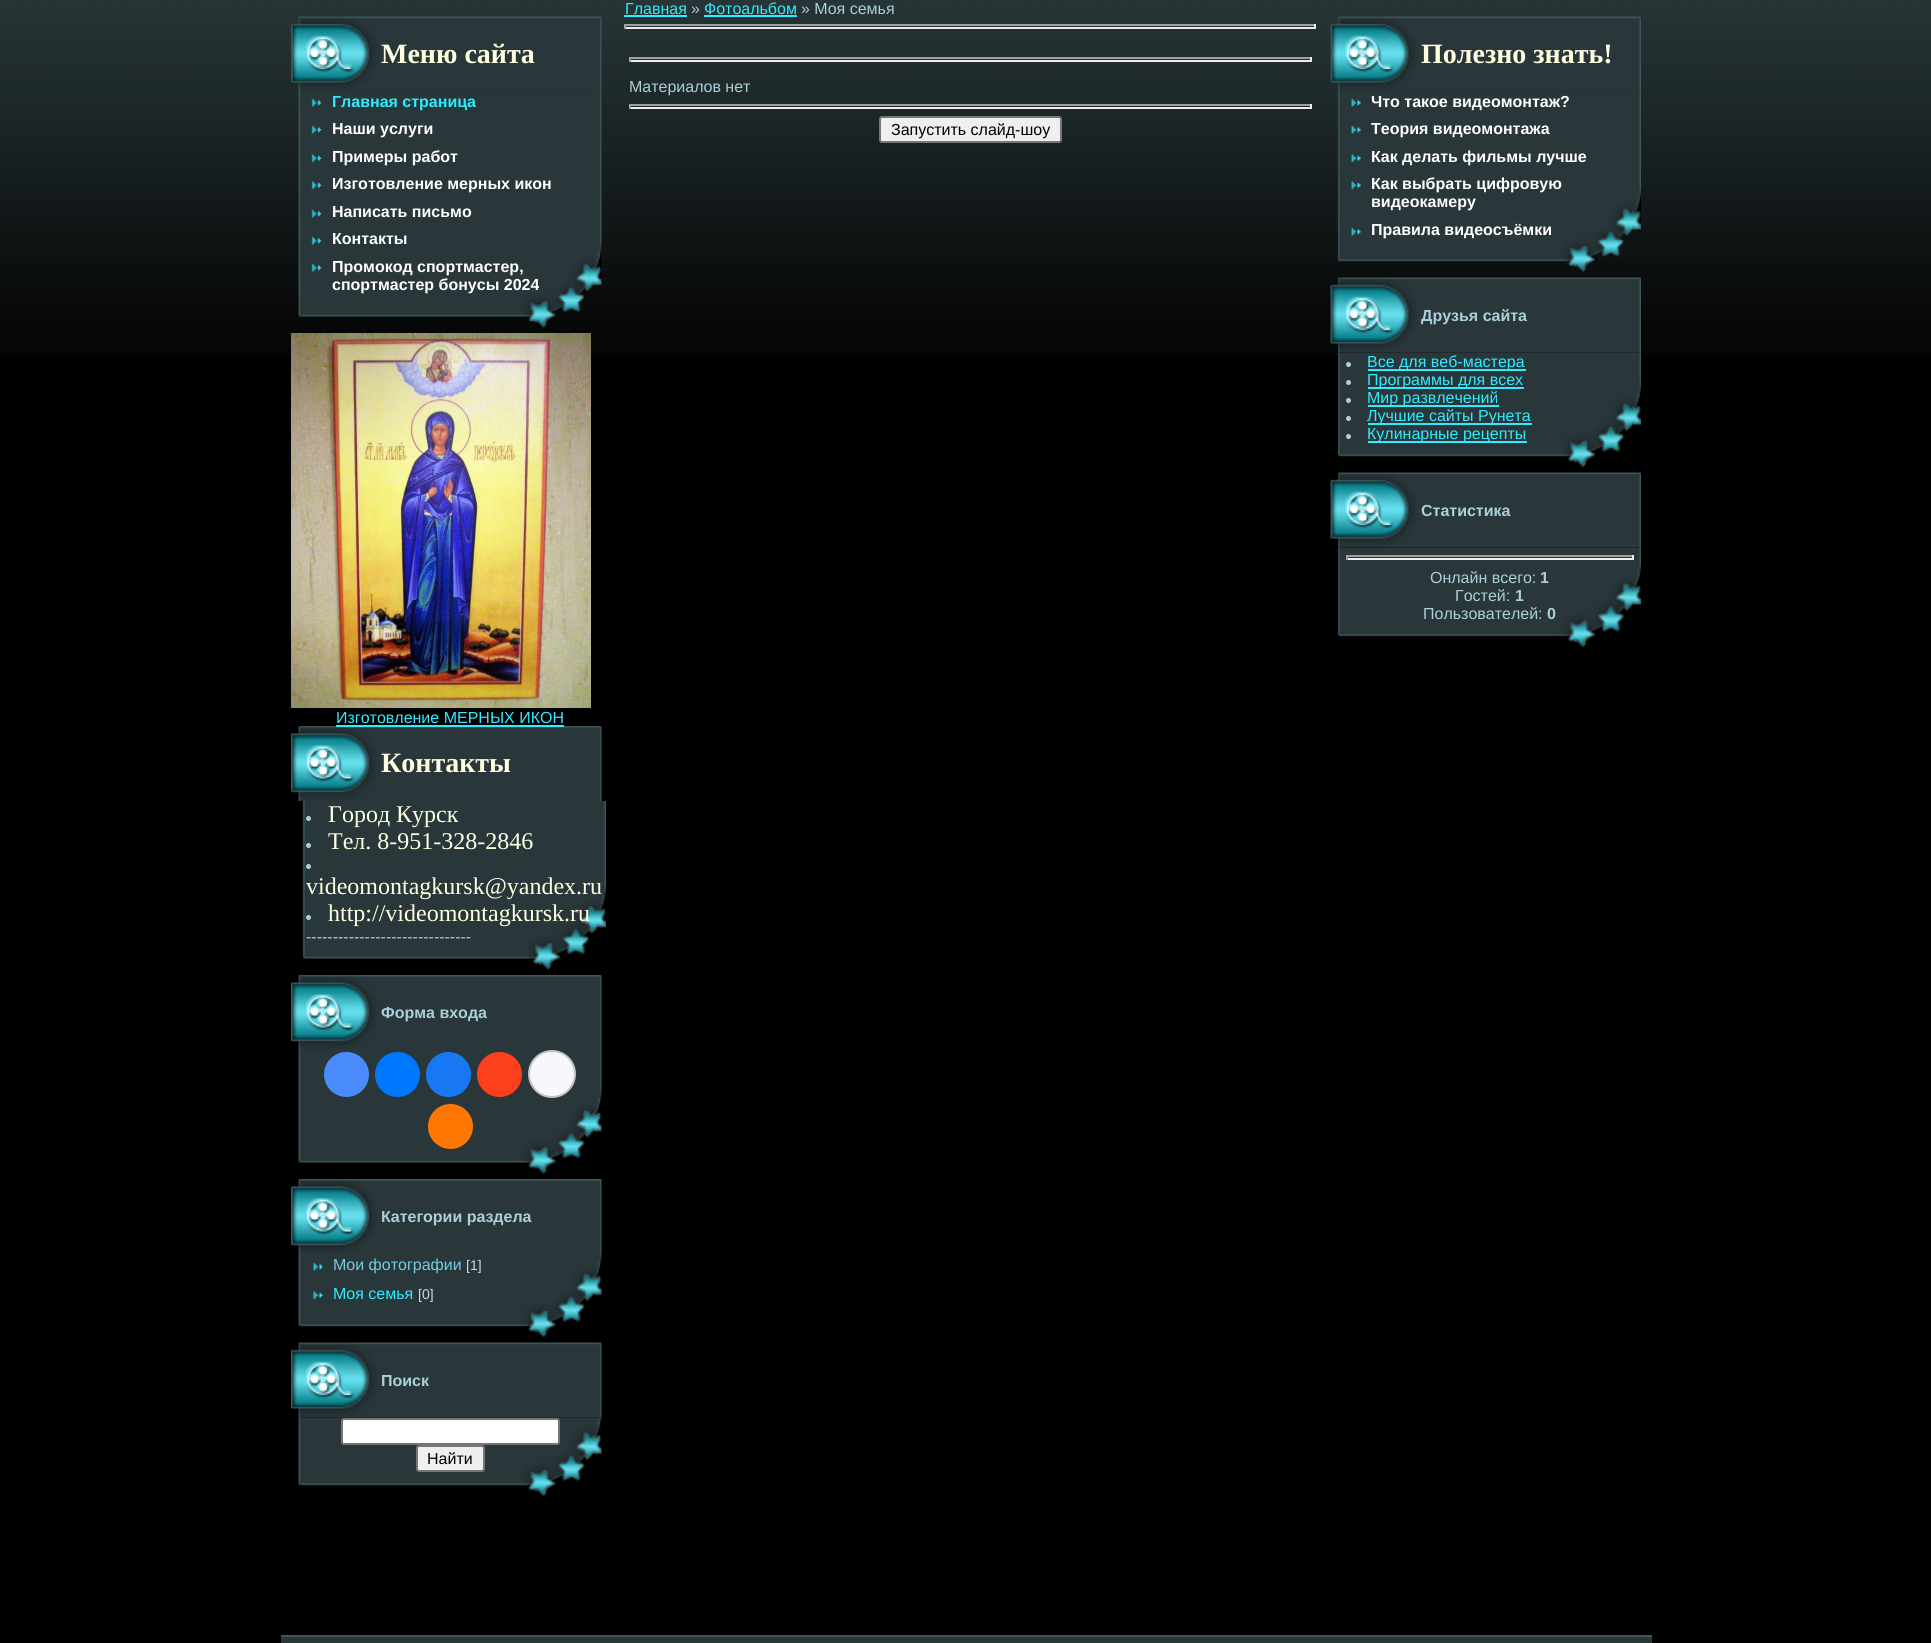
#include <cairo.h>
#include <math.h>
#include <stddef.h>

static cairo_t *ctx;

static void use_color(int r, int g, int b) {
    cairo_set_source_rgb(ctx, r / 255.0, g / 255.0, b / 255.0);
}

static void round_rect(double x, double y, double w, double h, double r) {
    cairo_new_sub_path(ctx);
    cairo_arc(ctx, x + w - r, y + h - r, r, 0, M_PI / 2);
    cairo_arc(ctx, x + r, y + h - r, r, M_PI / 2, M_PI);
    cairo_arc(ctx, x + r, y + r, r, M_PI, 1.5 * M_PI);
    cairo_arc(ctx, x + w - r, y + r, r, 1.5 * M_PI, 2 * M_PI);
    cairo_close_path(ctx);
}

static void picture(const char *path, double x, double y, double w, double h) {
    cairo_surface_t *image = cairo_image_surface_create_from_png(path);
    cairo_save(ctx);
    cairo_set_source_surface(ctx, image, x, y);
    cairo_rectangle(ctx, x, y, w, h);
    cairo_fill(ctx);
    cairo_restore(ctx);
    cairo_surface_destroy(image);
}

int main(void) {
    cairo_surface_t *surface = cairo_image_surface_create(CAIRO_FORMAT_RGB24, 1931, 1643);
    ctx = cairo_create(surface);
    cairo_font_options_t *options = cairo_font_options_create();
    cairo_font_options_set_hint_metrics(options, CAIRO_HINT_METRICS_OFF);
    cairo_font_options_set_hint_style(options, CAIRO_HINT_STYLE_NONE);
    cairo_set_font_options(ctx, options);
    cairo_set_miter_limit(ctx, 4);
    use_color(0, 0, 0);
    cairo_paint(ctx);
    picture("img1.png", 0, 0, 1931, 355);
    picture("img2.png", 291, 16, 311, 76);
    cairo_select_font_face(ctx, "Liberation Serif", CAIRO_FONT_SLANT_NORMAL, CAIRO_FONT_WEIGHT_BOLD);
    cairo_set_font_size(ctx, 28);
    use_color(255, 255, 224);
    cairo_move_to(ctx, 381, 63);
    cairo_show_text(ctx, "Меню сайта");
    picture("img3.png", 298, 91, 304, 237);
    picture("img4.png", 311, 98, 11, 9);
    cairo_select_font_face(ctx, "Liberation Sans", CAIRO_FONT_SLANT_NORMAL, CAIRO_FONT_WEIGHT_BOLD);
    cairo_set_font_size(ctx, 16);
    use_color(48, 235, 255);
    cairo_move_to(ctx, 332, 107);
    cairo_show_text(ctx, "Главная страница");
    picture("img4.png", 311, 125, 11, 9);
    use_color(255, 255, 255);
    cairo_move_to(ctx, 332, 134);
    cairo_show_text(ctx, "Наши услуги");
    picture("img5.png", 311, 154, 11, 9);
    cairo_move_to(ctx, 332, 162);
    cairo_show_text(ctx, "Примеры работ");
    picture("img5.png", 311, 181, 11, 9);
    cairo_move_to(ctx, 332, 189);
    cairo_show_text(ctx, "Изготовление мерных икон");
    picture("img4.png", 311, 209, 11, 9);
    cairo_move_to(ctx, 332, 217);
    cairo_show_text(ctx, "Написать письмо");
    picture("img4.png", 311, 236, 11, 9);
    cairo_move_to(ctx, 332, 244);
    cairo_show_text(ctx, "Контакты");
    picture("img4.png", 311, 263, 11, 9);
    cairo_move_to(ctx, 332, 272);
    cairo_show_text(ctx, "Промокод спортмастер,");
    cairo_move_to(ctx, 332, 290);
    cairo_show_text(ctx, "спортмастер бонусы 2024");
    picture("img6.png", 291, 333, 300, 375);
    cairo_select_font_face(ctx, "Liberation Sans", CAIRO_FONT_SLANT_NORMAL, CAIRO_FONT_WEIGHT_NORMAL);
    use_color(48, 235, 255);
    cairo_move_to(ctx, 336, 723);
    cairo_show_text(ctx, "Изготовление МЕРНЫХ ИКОН");
    picture("img7.png", 291, 726, 311, 75);
    cairo_rectangle(ctx, 336, 725, 228, 2);
    cairo_fill(ctx);
    cairo_select_font_face(ctx, "Liberation Serif", CAIRO_FONT_SLANT_NORMAL, CAIRO_FONT_WEIGHT_BOLD);
    cairo_set_font_size(ctx, 28);
    use_color(255, 255, 224);
    cairo_move_to(ctx, 381, 772);
    cairo_show_text(ctx, "Контакты");
    picture("img8.png", 302, 801, 304, 170);
    use_color(171, 208, 218);
    cairo_arc(ctx, 308.5, 818.5, 2.5, 0, 2 * M_PI);
    cairo_fill(ctx);
    cairo_select_font_face(ctx, "Liberation Serif", CAIRO_FONT_SLANT_NORMAL, CAIRO_FONT_WEIGHT_NORMAL);
    cairo_set_font_size(ctx, 24);
    use_color(255, 255, 224);
    cairo_move_to(ctx, 328, 822);
    cairo_show_text(ctx, "Город Курск");
    use_color(171, 208, 218);
    cairo_new_path(ctx);
    cairo_arc(ctx, 308.5, 845.5, 2.5, 0, 2 * M_PI);
    cairo_fill(ctx);
    use_color(255, 255, 224);
    cairo_move_to(ctx, 328, 849);
    cairo_show_text(ctx, "Тел. 8-951-328-2846");
    use_color(171, 208, 218);
    cairo_new_path(ctx);
    cairo_arc(ctx, 308.5, 866.5, 2.5, 0, 2 * M_PI);
    cairo_fill(ctx);
    use_color(255, 255, 224);
    cairo_move_to(ctx, 306, 894);
    cairo_show_text(ctx, "videomontagkursk@yandex.ru");
    use_color(171, 208, 218);
    cairo_new_path(ctx);
    cairo_arc(ctx, 308.5, 917.5, 2.5, 0, 2 * M_PI);
    cairo_fill(ctx);
    use_color(255, 255, 224);
    cairo_move_to(ctx, 328, 921);
    cairo_show_text(ctx, "http://videomontagkursk.ru");
    cairo_select_font_face(ctx, "Liberation Sans", CAIRO_FONT_SLANT_NORMAL, CAIRO_FONT_WEIGHT_NORMAL);
    cairo_set_font_size(ctx, 16);
    use_color(171, 208, 218);
    cairo_move_to(ctx, 306, 942);
    cairo_show_text(ctx, "-------------------------------");
    picture("img7.png", 291, 975, 311, 75);
    cairo_select_font_face(ctx, "Liberation Sans", CAIRO_FONT_SLANT_NORMAL, CAIRO_FONT_WEIGHT_BOLD);
    cairo_move_to(ctx, 381, 1018);
    cairo_show_text(ctx, "Форма входа");
    picture("img9.png", 298, 1050, 304, 125);
    use_color(73, 139, 250);
    cairo_arc(ctx, 346.5, 1074.5, 22.5, 0, 2 * M_PI);
    cairo_fill(ctx);
    use_color(0, 119, 255);
    cairo_arc(ctx, 397.5, 1074.5, 22.5, 0, 2 * M_PI);
    cairo_fill(ctx);
    use_color(24, 119, 242);
    cairo_arc(ctx, 448.5, 1074.5, 22.5, 0, 2 * M_PI);
    cairo_fill(ctx);
    use_color(252, 63, 29);
    cairo_arc(ctx, 499.5, 1074.5, 22.5, 0, 2 * M_PI);
    cairo_fill(ctx);
    use_color(248, 248, 252);
    cairo_arc(ctx, 552, 1074, 23, 0, 2 * M_PI);
    cairo_fill_preserve(ctx);
    use_color(196, 196, 196);
    cairo_stroke(ctx);
    use_color(255, 119, 0);
    cairo_arc(ctx, 450.5, 1126.5, 22.5, 0, 2 * M_PI);
    cairo_fill(ctx);
    picture("img7.png", 291, 1179, 311, 75);
    use_color(171, 208, 218);
    cairo_move_to(ctx, 381, 1222);
    cairo_show_text(ctx, "Категории раздела");
    picture("img10.png", 298, 1254, 304, 84);
    picture("img11.png", 313, 1262, 10, 9);
    cairo_select_font_face(ctx, "Liberation Sans", CAIRO_FONT_SLANT_NORMAL, CAIRO_FONT_WEIGHT_NORMAL);
    use_color(115, 205, 229);
    cairo_move_to(ctx, 333, 1270);
    cairo_show_text(ctx, "Мои фотографии");
    cairo_set_font_size(ctx, 14);
    use_color(216, 213, 213);
    cairo_move_to(ctx, 466, 1270);
    cairo_show_text(ctx, "[1]");
    picture("img12.png", 313, 1291, 10, 9);
    cairo_set_font_size(ctx, 16);
    use_color(48, 235, 255);
    cairo_move_to(ctx, 333, 1299);
    cairo_show_text(ctx, "Моя семья");
    cairo_set_font_size(ctx, 14);
    use_color(216, 213, 213);
    cairo_move_to(ctx, 418, 1299);
    cairo_show_text(ctx, "[0]");
    picture("img13.png", 291, 1342, 311, 76);
    cairo_select_font_face(ctx, "Liberation Sans", CAIRO_FONT_SLANT_NORMAL, CAIRO_FONT_WEIGHT_BOLD);
    cairo_set_font_size(ctx, 16);
    use_color(171, 208, 218);
    cairo_move_to(ctx, 381, 1386);
    cairo_show_text(ctx, "Поиск");
    picture("img14.png", 298, 1417, 304, 80);
    use_color(255, 255, 255);
    round_rect(342, 1419, 217, 25, 2);
    cairo_fill_preserve(ctx);
    use_color(118, 118, 118);
    cairo_stroke(ctx);
    use_color(239, 239, 239);
    round_rect(417, 1446, 67, 25, 2);
    cairo_fill_preserve(ctx);
    use_color(118, 118, 118);
    cairo_stroke(ctx);
    cairo_select_font_face(ctx, "Liberation Sans", CAIRO_FONT_SLANT_NORMAL, CAIRO_FONT_WEIGHT_NORMAL);
    use_color(0, 0, 0);
    cairo_move_to(ctx, 427, 1464);
    cairo_show_text(ctx, "Найти");
    use_color(48, 235, 255);
    cairo_move_to(ctx, 625, 14);
    cairo_show_text(ctx, "Главная");
    cairo_rectangle(ctx, 624, 15, 63, 2);
    cairo_fill(ctx);
    use_color(171, 208, 218);
    cairo_move_to(ctx, 691, 14);
    cairo_show_text(ctx, "»");
    use_color(48, 235, 255);
    cairo_move_to(ctx, 704, 14);
    cairo_show_text(ctx, "Фотоальбом");
    cairo_rectangle(ctx, 704, 15, 93, 2);
    cairo_fill(ctx);
    use_color(171, 208, 218);
    cairo_move_to(ctx, 801, 14);
    cairo_show_text(ctx, "» Моя семья");
    use_color(159, 159, 159);
    cairo_rectangle(ctx, 624, 24, 692, 2);
    cairo_fill(ctx);
    use_color(238, 238, 238);
    cairo_rectangle(ctx, 1314, 24, 2, 5);
    cairo_fill(ctx);
    cairo_rectangle(ctx, 624, 27, 692, 2);
    cairo_fill(ctx);
    use_color(159, 159, 159);
    cairo_rectangle(ctx, 624, 24, 2, 5);
    cairo_fill(ctx);
    cairo_rectangle(ctx, 629, 57, 682, 2);
    cairo_fill(ctx);
    use_color(238, 238, 238);
    cairo_rectangle(ctx, 1310, 57, 2, 5);
    cairo_fill(ctx);
    cairo_rectangle(ctx, 629, 60, 682, 2);
    cairo_fill(ctx);
    use_color(159, 159, 159);
    cairo_rectangle(ctx, 629, 57, 2, 5);
    cairo_fill(ctx);
    use_color(171, 208, 218);
    cairo_move_to(ctx, 629, 92);
    cairo_show_text(ctx, "Материалов нет");
    use_color(159, 159, 159);
    cairo_rectangle(ctx, 629, 104, 682, 2);
    cairo_fill(ctx);
    use_color(238, 238, 238);
    cairo_rectangle(ctx, 1310, 104, 2, 5);
    cairo_fill(ctx);
    cairo_rectangle(ctx, 629, 107, 682, 2);
    cairo_fill(ctx);
    use_color(159, 159, 159);
    cairo_rectangle(ctx, 629, 104, 2, 5);
    cairo_fill(ctx);
    use_color(239, 239, 239);
    round_rect(880, 117, 181, 25, 2);
    cairo_fill_preserve(ctx);
    use_color(118, 118, 118);
    cairo_stroke(ctx);
    use_color(0, 0, 0);
    cairo_move_to(ctx, 891, 135);
    cairo_show_text(ctx, "Запустить слайд-шоу");
    picture("img15.png", 1330, 16, 311, 76);
    cairo_select_font_face(ctx, "Liberation Serif", CAIRO_FONT_SLANT_NORMAL, CAIRO_FONT_WEIGHT_BOLD);
    cairo_set_font_size(ctx, 28);
    use_color(255, 255, 224);
    cairo_move_to(ctx, 1421, 63);
    cairo_show_text(ctx, "Полезно знать!");
    picture("img16.png", 1337, 91, 304, 181);
    picture("img17.png", 1351, 98, 10, 9);
    cairo_select_font_face(ctx, "Liberation Sans", CAIRO_FONT_SLANT_NORMAL, CAIRO_FONT_WEIGHT_BOLD);
    cairo_set_font_size(ctx, 16);
    use_color(255, 255, 255);
    cairo_move_to(ctx, 1371, 107);
    cairo_show_text(ctx, "Что такое видеомонтаж?");
    picture("img17.png", 1351, 125, 10, 9);
    cairo_move_to(ctx, 1371, 134);
    cairo_show_text(ctx, "Теория видеомонтажа");
    picture("img18.png", 1351, 154, 10, 9);
    cairo_move_to(ctx, 1371, 162);
    cairo_show_text(ctx, "Как делать фильмы лучше");
    picture("img18.png", 1351, 181, 10, 9);
    cairo_move_to(ctx, 1371, 189);
    cairo_show_text(ctx, "Как выбрать цифровую");
    cairo_move_to(ctx, 1371, 207);
    cairo_show_text(ctx, "видеокамеру");
    picture("img17.png", 1351, 227, 10, 9);
    cairo_move_to(ctx, 1371, 235);
    cairo_show_text(ctx, "Правила видеосъёмки");
    picture("img19.png", 1330, 277, 311, 76);
    use_color(171, 208, 218);
    cairo_move_to(ctx, 1421, 321);
    cairo_show_text(ctx, "Друзья сайта");
    picture("img20.png", 1337, 352, 304, 116);
    cairo_arc(ctx, 1348.5, 364.5, 2.5, 0, 2 * M_PI);
    cairo_fill(ctx);
    use_color(48, 235, 255);
    cairo_rectangle(ctx, 1368, 369, 158, 2);
    cairo_fill(ctx);
    cairo_select_font_face(ctx, "Liberation Sans", CAIRO_FONT_SLANT_NORMAL, CAIRO_FONT_WEIGHT_NORMAL);
    cairo_move_to(ctx, 1367, 367);
    cairo_show_text(ctx, "Все для веб-мастера");
    use_color(171, 208, 218);
    cairo_new_path(ctx);
    cairo_arc(ctx, 1348.5, 382.5, 2.5, 0, 2 * M_PI);
    cairo_fill(ctx);
    use_color(48, 235, 255);
    cairo_rectangle(ctx, 1368, 387, 156, 2);
    cairo_fill(ctx);
    cairo_move_to(ctx, 1367, 385);
    cairo_show_text(ctx, "Программы для всех");
    use_color(171, 208, 218);
    cairo_new_path(ctx);
    cairo_arc(ctx, 1348.5, 400.5, 2.5, 0, 2 * M_PI);
    cairo_fill(ctx);
    use_color(48, 235, 255);
    cairo_rectangle(ctx, 1368, 405, 131, 2);
    cairo_fill(ctx);
    cairo_move_to(ctx, 1367, 403);
    cairo_show_text(ctx, "Мир развлечений");
    use_color(171, 208, 218);
    cairo_new_path(ctx);
    cairo_arc(ctx, 1348.5, 418.5, 2.5, 0, 2 * M_PI);
    cairo_fill(ctx);
    use_color(48, 235, 255);
    cairo_rectangle(ctx, 1368, 423, 164, 2);
    cairo_fill(ctx);
    cairo_move_to(ctx, 1367, 421);
    cairo_show_text(ctx, "Лучшие сайты Рунета");
    use_color(171, 208, 218);
    cairo_new_path(ctx);
    cairo_arc(ctx, 1348.5, 436.5, 2.5, 0, 2 * M_PI);
    cairo_fill(ctx);
    use_color(48, 235, 255);
    cairo_rectangle(ctx, 1368, 441, 159, 2);
    cairo_fill(ctx);
    cairo_move_to(ctx, 1367, 439);
    cairo_show_text(ctx, "Кулинарные рецепты");
    picture("img21.png", 1330, 472, 311, 76);
    cairo_select_font_face(ctx, "Liberation Sans", CAIRO_FONT_SLANT_NORMAL, CAIRO_FONT_WEIGHT_BOLD);
    use_color(171, 208, 218);
    cairo_move_to(ctx, 1421, 516);
    cairo_show_text(ctx, "Статистика");
    picture("img22.png", 1337, 547, 304, 101);
    use_color(159, 159, 159);
    cairo_rectangle(ctx, 1346, 555, 288, 2);
    cairo_fill(ctx);
    use_color(238, 238, 238);
    cairo_rectangle(ctx, 1632, 555, 2, 5);
    cairo_fill(ctx);
    cairo_rectangle(ctx, 1346, 558, 288, 2);
    cairo_fill(ctx);
    use_color(159, 159, 159);
    cairo_rectangle(ctx, 1346, 555, 2, 5);
    cairo_fill(ctx);
    cairo_select_font_face(ctx, "Liberation Sans", CAIRO_FONT_SLANT_NORMAL, CAIRO_FONT_WEIGHT_NORMAL);
    use_color(171, 208, 218);
    cairo_move_to(ctx, 1430, 583);
    cairo_show_text(ctx, "Онлайн всего:");
    cairo_select_font_face(ctx, "Liberation Sans", CAIRO_FONT_SLANT_NORMAL, CAIRO_FONT_WEIGHT_BOLD);
    cairo_move_to(ctx, 1540, 583);
    cairo_show_text(ctx, "1");
    cairo_select_font_face(ctx, "Liberation Sans", CAIRO_FONT_SLANT_NORMAL, CAIRO_FONT_WEIGHT_NORMAL);
    cairo_move_to(ctx, 1455, 601);
    cairo_show_text(ctx, "Гостей:");
    cairo_select_font_face(ctx, "Liberation Sans", CAIRO_FONT_SLANT_NORMAL, CAIRO_FONT_WEIGHT_BOLD);
    cairo_move_to(ctx, 1515, 601);
    cairo_show_text(ctx, "1");
    cairo_select_font_face(ctx, "Liberation Sans", CAIRO_FONT_SLANT_NORMAL, CAIRO_FONT_WEIGHT_NORMAL);
    cairo_move_to(ctx, 1423, 619);
    cairo_show_text(ctx, "Пользователей:");
    cairo_select_font_face(ctx, "Liberation Sans", CAIRO_FONT_SLANT_NORMAL, CAIRO_FONT_WEIGHT_BOLD);
    cairo_move_to(ctx, 1547, 619);
    cairo_show_text(ctx, "0");
    use_color(41, 55, 58);
    cairo_rectangle(ctx, 281, 1637, 1371, 6);
    cairo_fill(ctx);
    use_color(64, 87, 90);
    cairo_rectangle(ctx, 281, 1635, 1371, 2);
    cairo_fill(ctx);
    cairo_surface_write_to_png(surface, "result.png");
    cairo_font_options_destroy(options);
    cairo_destroy(ctx);
    cairo_surface_destroy(surface);
    return 0;
}
